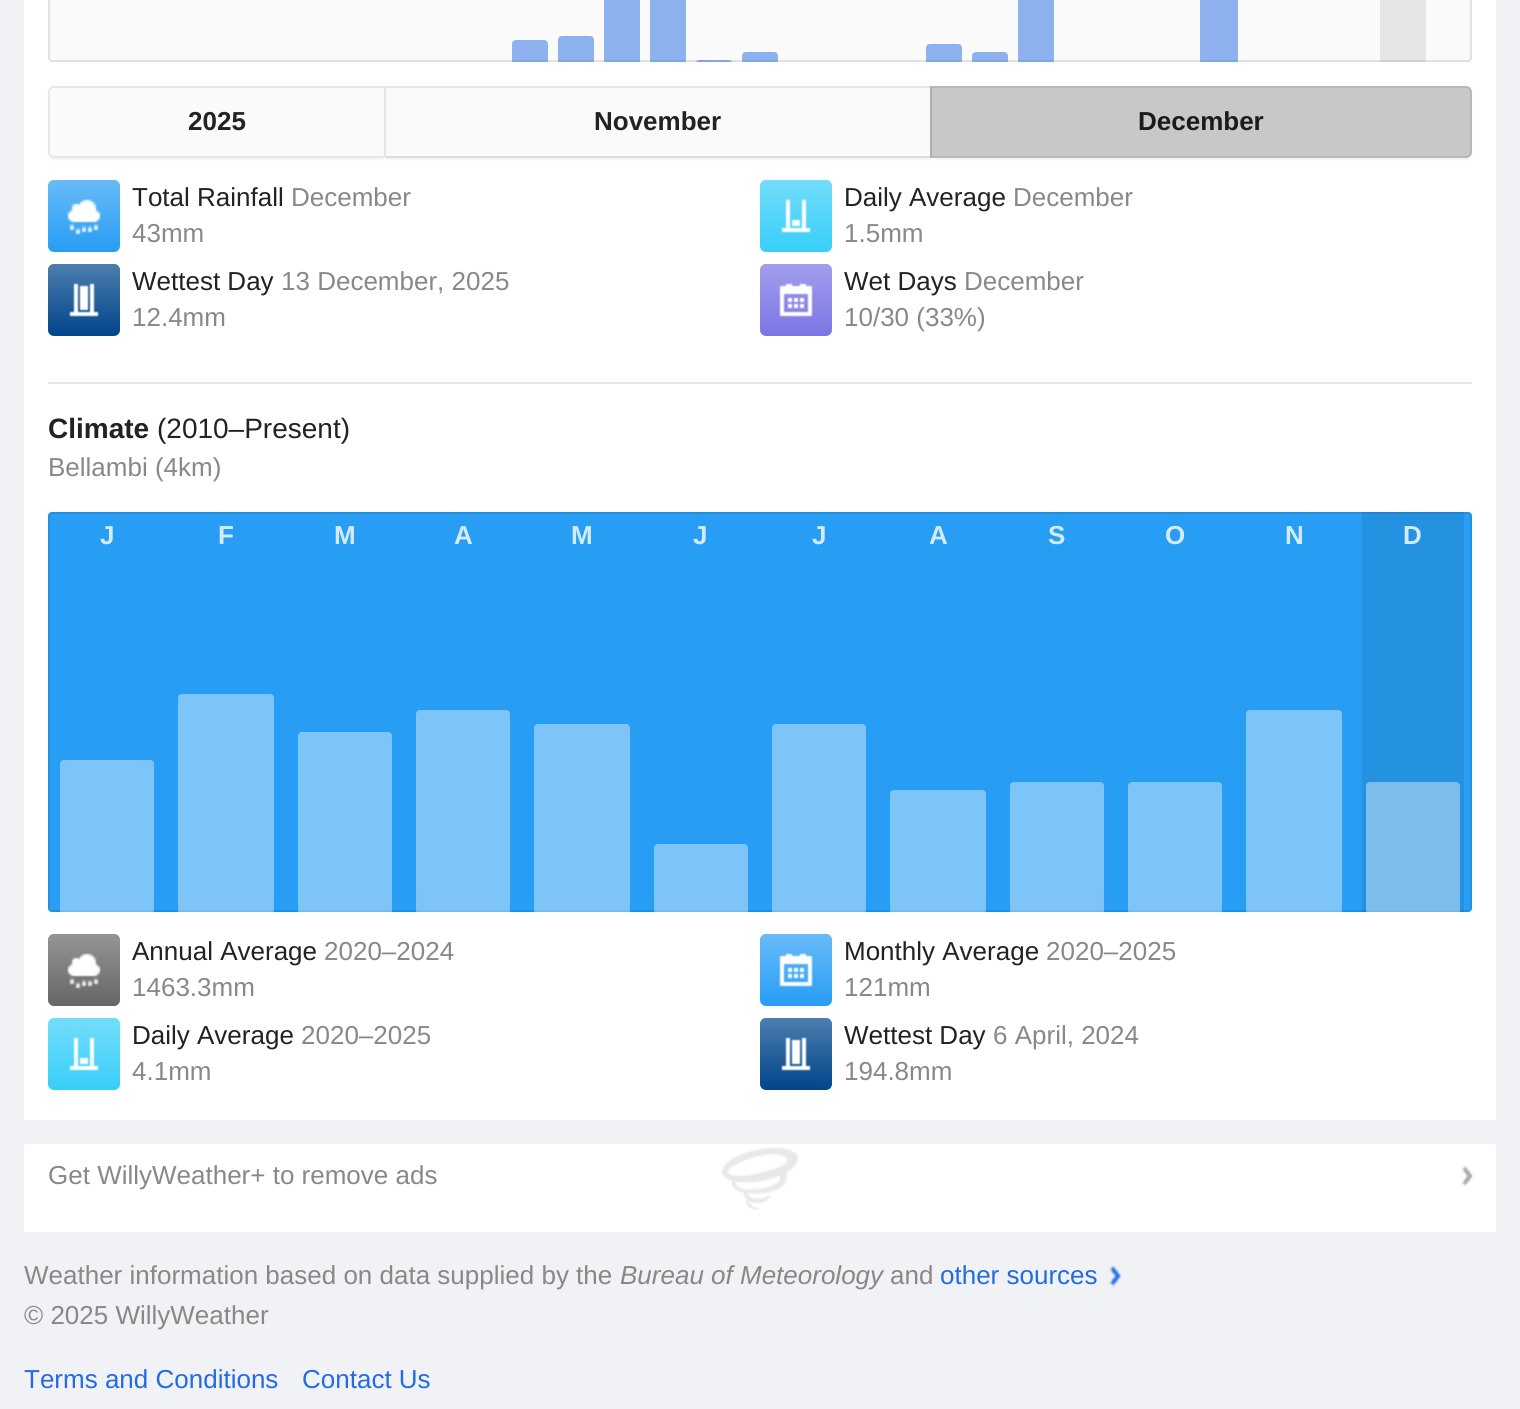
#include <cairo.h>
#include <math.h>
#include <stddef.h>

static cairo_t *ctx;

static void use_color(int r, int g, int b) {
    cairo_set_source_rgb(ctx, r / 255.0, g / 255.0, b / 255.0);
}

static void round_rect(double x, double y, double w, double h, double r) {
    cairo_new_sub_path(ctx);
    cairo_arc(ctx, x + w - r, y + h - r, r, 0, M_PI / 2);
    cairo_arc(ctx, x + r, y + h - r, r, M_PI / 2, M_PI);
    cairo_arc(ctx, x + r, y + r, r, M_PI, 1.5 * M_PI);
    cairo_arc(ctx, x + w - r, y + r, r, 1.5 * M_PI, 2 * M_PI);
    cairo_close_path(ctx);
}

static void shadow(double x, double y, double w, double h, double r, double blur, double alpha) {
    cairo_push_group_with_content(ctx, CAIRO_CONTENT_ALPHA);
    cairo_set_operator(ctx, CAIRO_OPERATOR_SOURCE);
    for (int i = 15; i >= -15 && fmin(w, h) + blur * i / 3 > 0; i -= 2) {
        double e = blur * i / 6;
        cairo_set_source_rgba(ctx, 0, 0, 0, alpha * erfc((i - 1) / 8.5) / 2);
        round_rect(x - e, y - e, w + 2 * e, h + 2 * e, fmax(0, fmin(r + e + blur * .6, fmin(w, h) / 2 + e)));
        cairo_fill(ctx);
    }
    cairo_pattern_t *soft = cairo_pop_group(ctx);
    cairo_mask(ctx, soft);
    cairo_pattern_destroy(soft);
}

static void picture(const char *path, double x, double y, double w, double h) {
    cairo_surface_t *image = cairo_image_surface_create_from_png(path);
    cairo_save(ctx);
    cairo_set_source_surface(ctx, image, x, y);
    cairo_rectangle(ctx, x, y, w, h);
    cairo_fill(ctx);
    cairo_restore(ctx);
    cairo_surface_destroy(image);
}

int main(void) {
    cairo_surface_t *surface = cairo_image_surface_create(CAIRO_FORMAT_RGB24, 1520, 1409);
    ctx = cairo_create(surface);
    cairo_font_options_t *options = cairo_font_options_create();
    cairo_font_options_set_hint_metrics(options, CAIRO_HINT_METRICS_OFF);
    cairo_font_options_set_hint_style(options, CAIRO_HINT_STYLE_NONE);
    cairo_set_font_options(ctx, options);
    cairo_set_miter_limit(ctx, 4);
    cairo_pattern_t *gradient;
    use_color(240, 242, 246);
    cairo_paint(ctx);
    use_color(255, 255, 255);
    cairo_rectangle(ctx, 24, 0, 1472, 1232);
    cairo_fill(ctx);
    use_color(250, 250, 250);
    round_rect(49, -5, 1422, 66, 3);
    cairo_fill_preserve(ctx);
    use_color(225, 225, 225);
    cairo_stroke(ctx);
    cairo_save(ctx);
    cairo_rectangle(ctx, 48, 0, 1424, 62);
    cairo_clip(ctx);
    cairo_set_source_rgba(ctx, 0.133, 0.42, 0.894, 0.5);
    round_rect(512, 40, 36, 24, 4);
    cairo_fill(ctx);
    round_rect(558, 36, 36, 28, 4);
    cairo_fill(ctx);
    round_rect(604, -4, 36, 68, 4);
    cairo_fill(ctx);
    round_rect(650, -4, 36, 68, 4);
    cairo_fill(ctx);
    use_color(130, 166, 227);
    cairo_new_path(ctx);
    cairo_move_to(ctx, 700, 60);
    cairo_line_to(ctx, 729, 60);
    cairo_curve_to(ctx, 730, 60, 733.5, 61.5, 731.5, 63);
    cairo_line_to(ctx, 729, 64);
    cairo_line_to(ctx, 698.5, 64);
    cairo_curve_to(ctx, 693.5, 63, 697, 60, 700, 60);
    cairo_close_path(ctx);
    cairo_fill(ctx);
    cairo_set_source_rgba(ctx, 0.133, 0.42, 0.894, 0.5);
    round_rect(742, 52, 36, 12, 4);
    cairo_fill(ctx);
    round_rect(926, 44, 36, 20, 4);
    cairo_fill(ctx);
    round_rect(972, 52, 36, 12, 4);
    cairo_fill(ctx);
    round_rect(1018, -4, 36, 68, 4);
    cairo_fill(ctx);
    round_rect(1200, -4, 38, 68, 4);
    cairo_fill(ctx);
    cairo_restore(ctx);
    cairo_set_source_rgba(ctx, 0, 0, 0, 0.08);
    cairo_rectangle(ctx, 1380, 0, 46, 62);
    cairo_fill(ctx);
    cairo_save(ctx);
    cairo_set_fill_rule(ctx, CAIRO_FILL_RULE_EVEN_ODD);
    cairo_new_path(ctx);
    cairo_move_to(ctx, 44, 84);
    cairo_line_to(ctx, 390, 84);
    cairo_line_to(ctx, 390, 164);
    cairo_line_to(ctx, 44, 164);
    cairo_close_path(ctx);
    cairo_move_to(ctx, 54, 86);
    cairo_line_to(ctx, 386, 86);
    cairo_line_to(ctx, 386, 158);
    cairo_line_to(ctx, 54, 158);
    cairo_curve_to(ctx, 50.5, 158, 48, 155.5, 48, 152);
    cairo_line_to(ctx, 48, 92);
    cairo_curve_to(ctx, 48, 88.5, 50.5, 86, 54, 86);
    cairo_close_path(ctx);
    cairo_clip(ctx);
    use_color(0, 0, 0);
    shadow(48, 88, 338, 72, 6, 1, 0.05);
    cairo_restore(ctx);
    use_color(250, 250, 250);
    cairo_new_path(ctx);
    cairo_move_to(ctx, 54, 88);
    cairo_line_to(ctx, 384, 88);
    cairo_line_to(ctx, 384, 156);
    cairo_line_to(ctx, 54, 156);
    cairo_curve_to(ctx, 52, 156, 50, 154, 50, 152);
    cairo_line_to(ctx, 50, 92);
    cairo_curve_to(ctx, 50, 90, 52, 88, 54, 88);
    cairo_close_path(ctx);
    cairo_fill(ctx);
    cairo_new_path(ctx);
    cairo_move_to(ctx, 54, 87);
    cairo_line_to(ctx, 385, 87);
    cairo_line_to(ctx, 385, 157);
    cairo_line_to(ctx, 54, 157);
    cairo_curve_to(ctx, 51, 157, 49, 155, 49, 152);
    cairo_line_to(ctx, 49, 92);
    cairo_curve_to(ctx, 49, 89, 51, 87, 54, 87);
    cairo_close_path(ctx);
    cairo_set_source_rgba(ctx, 0, 0, 0, 0.1);
    cairo_stroke(ctx);
    cairo_select_font_face(ctx, "Liberation Sans", CAIRO_FONT_SLANT_NORMAL, CAIRO_FONT_WEIGHT_BOLD);
    cairo_set_font_size(ctx, 26);
    use_color(34, 34, 34);
    cairo_move_to(ctx, 188, 130);
    cairo_show_text(ctx, "2025");
    use_color(0, 0, 0);
    shadow(386, 88, 546, 72, 0, 1, 0.05);
    use_color(250, 250, 250);
    cairo_rectangle(ctx, 386, 88, 544, 68);
    cairo_fill(ctx);
    use_color(230, 230, 230);
    cairo_new_path(ctx);
    cairo_move_to(ctx, 386, 86);
    cairo_line_to(ctx, 932, 86);
    cairo_line_to(ctx, 930, 88);
    cairo_line_to(ctx, 386, 88);
    cairo_close_path(ctx);
    cairo_fill(ctx);
    cairo_set_source_rgba(ctx, 0, 0, 0, 0.1);
    cairo_new_path(ctx);
    cairo_move_to(ctx, 932, 86);
    cairo_line_to(ctx, 932, 158);
    cairo_line_to(ctx, 930, 156);
    cairo_line_to(ctx, 930, 88);
    cairo_close_path(ctx);
    cairo_fill(ctx);
    cairo_new_path(ctx);
    cairo_move_to(ctx, 932, 158);
    cairo_line_to(ctx, 386, 158);
    cairo_line_to(ctx, 386, 156);
    cairo_line_to(ctx, 930, 156);
    cairo_close_path(ctx);
    cairo_fill(ctx);
    use_color(34, 34, 34);
    cairo_move_to(ctx, 594, 130);
    cairo_show_text(ctx, "November");
    cairo_save(ctx);
    cairo_set_fill_rule(ctx, CAIRO_FILL_RULE_EVEN_ODD);
    cairo_new_path(ctx);
    cairo_move_to(ctx, 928, 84);
    cairo_line_to(ctx, 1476, 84);
    cairo_line_to(ctx, 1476, 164);
    cairo_line_to(ctx, 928, 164);
    cairo_close_path(ctx);
    cairo_move_to(ctx, 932, 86);
    cairo_line_to(ctx, 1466, 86);
    cairo_curve_to(ctx, 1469.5, 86, 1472, 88.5, 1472, 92);
    cairo_line_to(ctx, 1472, 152);
    cairo_curve_to(ctx, 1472, 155.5, 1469.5, 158, 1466, 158);
    cairo_line_to(ctx, 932, 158);
    cairo_close_path(ctx);
    cairo_clip(ctx);
    use_color(0, 0, 0);
    shadow(932, 88, 540, 72, 6, 1, 0.05);
    cairo_restore(ctx);
    use_color(250, 250, 250);
    cairo_new_path(ctx);
    cairo_move_to(ctx, 932, 88);
    cairo_line_to(ctx, 1466, 88);
    cairo_curve_to(ctx, 1468, 88, 1470, 90, 1470, 92);
    cairo_line_to(ctx, 1470, 152);
    cairo_curve_to(ctx, 1470, 154, 1468, 156, 1466, 156);
    cairo_line_to(ctx, 932, 156);
    cairo_close_path(ctx);
    cairo_fill(ctx);
    cairo_set_source_rgba(ctx, 0, 0, 0, 0.1);
    cairo_set_fill_rule(ctx, CAIRO_FILL_RULE_EVEN_ODD);
    cairo_new_path(ctx);
    cairo_move_to(ctx, 932, 86);
    cairo_line_to(ctx, 1466, 86);
    cairo_curve_to(ctx, 1469, 86, 1472, 89, 1472, 92);
    cairo_line_to(ctx, 1472, 152);
    cairo_curve_to(ctx, 1472, 155, 1469, 158, 1466, 158);
    cairo_line_to(ctx, 932, 158);
    cairo_close_path(ctx);
    cairo_move_to(ctx, 932, 88);
    cairo_line_to(ctx, 1466, 88);
    cairo_curve_to(ctx, 1468, 88, 1470, 90, 1470, 92);
    cairo_line_to(ctx, 1470, 152);
    cairo_curve_to(ctx, 1470, 154, 1468, 156, 1466, 156);
    cairo_line_to(ctx, 932, 156);
    cairo_close_path(ctx);
    cairo_fill(ctx);
    use_color(34, 34, 34);
    cairo_move_to(ctx, 1138, 130);
    cairo_show_text(ctx, "December");
    cairo_set_source_rgba(ctx, 0, 0, 0, 0.2);
    cairo_new_path(ctx);
    cairo_move_to(ctx, 930, 86);
    cairo_line_to(ctx, 1466, 86);
    cairo_curve_to(ctx, 1469.5, 86, 1472, 88.5, 1472, 92);
    cairo_line_to(ctx, 1472, 152);
    cairo_curve_to(ctx, 1472, 155.5, 1469.5, 158, 1466, 158);
    cairo_line_to(ctx, 930, 158);
    cairo_close_path(ctx);
    cairo_fill(ctx);
    use_color(39, 157, 244);
    round_rect(48, 180, 72, 72, 6);
    cairo_fill(ctx);
    gradient = cairo_pattern_create_linear(84, 180, 84, 252);
    cairo_pattern_add_color_stop_rgba(gradient, 0, 1, 1, 1, 0.3);
    cairo_pattern_add_color_stop_rgba(gradient, 1, 1, 1, 1, 0);
    cairo_set_source(ctx, gradient);
    cairo_pattern_destroy(gradient);
    round_rect(48, 180, 72, 72, 6);
    cairo_fill(ctx);
    picture("img1.png", 67, 199, 34, 36);
    cairo_select_font_face(ctx, "Liberation Sans", CAIRO_FONT_SLANT_NORMAL, CAIRO_FONT_WEIGHT_NORMAL);
    use_color(34, 34, 34);
    cairo_move_to(ctx, 132, 206);
    cairo_show_text(ctx, "Total Rainfall");
    use_color(136, 136, 136);
    cairo_move_to(ctx, 291, 206);
    cairo_show_text(ctx, "December");
    cairo_move_to(ctx, 132, 242);
    cairo_show_text(ctx, "43mm");
    use_color(55, 206, 249);
    round_rect(760, 180, 72, 72, 6);
    cairo_fill(ctx);
    gradient = cairo_pattern_create_linear(796, 180, 796, 252);
    cairo_pattern_add_color_stop_rgba(gradient, 0, 1, 1, 1, 0.3);
    cairo_pattern_add_color_stop_rgba(gradient, 1, 1, 1, 1, 0);
    cairo_set_source(ctx, gradient);
    cairo_pattern_destroy(gradient);
    round_rect(760, 180, 72, 72, 6);
    cairo_fill(ctx);
    picture("img2.png", 781, 199, 30, 34);
    use_color(34, 34, 34);
    cairo_move_to(ctx, 844, 206);
    cairo_show_text(ctx, "Daily Average");
    use_color(136, 136, 136);
    cairo_move_to(ctx, 1013, 206);
    cairo_show_text(ctx, "December");
    cairo_move_to(ctx, 844, 242);
    cairo_show_text(ctx, "1.5mm");
    use_color(0, 69, 138);
    round_rect(48, 264, 72, 72, 6);
    cairo_fill(ctx);
    gradient = cairo_pattern_create_linear(84, 264, 84, 336);
    cairo_pattern_add_color_stop_rgba(gradient, 0, 1, 1, 1, 0.3);
    cairo_pattern_add_color_stop_rgba(gradient, 1, 1, 1, 1, 0);
    cairo_set_source(ctx, gradient);
    cairo_pattern_destroy(gradient);
    round_rect(48, 264, 72, 72, 6);
    cairo_fill(ctx);
    picture("img3.png", 69, 283, 30, 34);
    use_color(34, 34, 34);
    cairo_move_to(ctx, 132, 290);
    cairo_show_text(ctx, "Wettest Day");
    use_color(136, 136, 136);
    cairo_move_to(ctx, 281, 290);
    cairo_show_text(ctx, "13 December, 2025");
    cairo_move_to(ctx, 132, 326);
    cairo_show_text(ctx, "12.4mm");
    use_color(123, 117, 228);
    round_rect(760, 264, 72, 72, 6);
    cairo_fill(ctx);
    gradient = cairo_pattern_create_linear(796, 264, 796, 336);
    cairo_pattern_add_color_stop_rgba(gradient, 0, 1, 1, 1, 0.3);
    cairo_pattern_add_color_stop_rgba(gradient, 1, 1, 1, 1, 0);
    cairo_set_source(ctx, gradient);
    cairo_pattern_destroy(gradient);
    round_rect(760, 264, 72, 72, 6);
    cairo_fill(ctx);
    picture("img4.png", 779, 283, 34, 34);
    use_color(34, 34, 34);
    cairo_move_to(ctx, 844, 290);
    cairo_show_text(ctx, "Wet Days");
    use_color(136, 136, 136);
    cairo_move_to(ctx, 964, 290);
    cairo_show_text(ctx, "December");
    cairo_move_to(ctx, 844, 326);
    cairo_show_text(ctx, "10/30 (33%)");
    use_color(230, 230, 230);
    cairo_rectangle(ctx, 48, 382, 1424, 2);
    cairo_fill(ctx);
    cairo_select_font_face(ctx, "Liberation Sans", CAIRO_FONT_SLANT_NORMAL, CAIRO_FONT_WEIGHT_BOLD);
    cairo_set_font_size(ctx, 28);
    use_color(34, 34, 34);
    cairo_move_to(ctx, 48, 438);
    cairo_show_text(ctx, "Climate");
    cairo_select_font_face(ctx, "Liberation Sans", CAIRO_FONT_SLANT_NORMAL, CAIRO_FONT_WEIGHT_NORMAL);
    cairo_move_to(ctx, 157, 438);
    cairo_show_text(ctx, "(2010–Present)");
    cairo_set_font_size(ctx, 26);
    use_color(136, 136, 136);
    cairo_move_to(ctx, 48, 476);
    cairo_show_text(ctx, "Bellambi (4km)");
    use_color(39, 157, 244);
    round_rect(48, 512, 1424, 400, 4);
    cairo_fill(ctx);
    round_rect(49, 513, 1422, 398, 3);
    cairo_set_source_rgba(ctx, 0, 0, 0, 0.1);
    cairo_stroke(ctx);
    cairo_select_font_face(ctx, "Liberation Sans", CAIRO_FONT_SLANT_NORMAL, CAIRO_FONT_WEIGHT_BOLD);
    use_color(212, 235, 253);
    cairo_move_to(ctx, 100, 544);
    cairo_show_text(ctx, "J");
    cairo_save(ctx);
    cairo_set_fill_rule(ctx, CAIRO_FILL_RULE_WINDING);
    cairo_rectangle(ctx, 48, 512, 1424, 400);
    cairo_clip(ctx);
    cairo_set_source_rgba(ctx, 1, 1, 1, 0.4);
    round_rect(60, 760, 94, 154, 4);
    cairo_fill(ctx);
    cairo_restore(ctx);
    cairo_move_to(ctx, 218, 544);
    cairo_show_text(ctx, "F");
    cairo_save(ctx);
    cairo_set_fill_rule(ctx, CAIRO_FILL_RULE_WINDING);
    cairo_rectangle(ctx, 48, 512, 1424, 400);
    cairo_clip(ctx);
    cairo_set_source_rgba(ctx, 1, 1, 1, 0.4);
    round_rect(178, 694, 96, 220, 4);
    cairo_fill(ctx);
    cairo_restore(ctx);
    cairo_move_to(ctx, 334, 544);
    cairo_show_text(ctx, "M");
    cairo_save(ctx);
    cairo_set_fill_rule(ctx, CAIRO_FILL_RULE_WINDING);
    cairo_rectangle(ctx, 48, 512, 1424, 400);
    cairo_clip(ctx);
    cairo_set_source_rgba(ctx, 1, 1, 1, 0.4);
    round_rect(298, 732, 94, 182, 4);
    cairo_fill(ctx);
    cairo_restore(ctx);
    cairo_move_to(ctx, 454, 544);
    cairo_show_text(ctx, "A");
    cairo_save(ctx);
    cairo_set_fill_rule(ctx, CAIRO_FILL_RULE_WINDING);
    cairo_rectangle(ctx, 48, 512, 1424, 400);
    cairo_clip(ctx);
    cairo_set_source_rgba(ctx, 1, 1, 1, 0.4);
    round_rect(416, 710, 94, 204, 4);
    cairo_fill(ctx);
    cairo_restore(ctx);
    cairo_move_to(ctx, 571, 544);
    cairo_show_text(ctx, "M");
    cairo_save(ctx);
    cairo_set_fill_rule(ctx, CAIRO_FILL_RULE_WINDING);
    cairo_rectangle(ctx, 48, 512, 1424, 400);
    cairo_clip(ctx);
    cairo_set_source_rgba(ctx, 1, 1, 1, 0.4);
    round_rect(534, 724, 96, 190, 4);
    cairo_fill(ctx);
    cairo_restore(ctx);
    cairo_move_to(ctx, 693, 544);
    cairo_show_text(ctx, "J");
    cairo_save(ctx);
    cairo_set_fill_rule(ctx, CAIRO_FILL_RULE_WINDING);
    cairo_rectangle(ctx, 48, 512, 1424, 400);
    cairo_clip(ctx);
    cairo_set_source_rgba(ctx, 1, 1, 1, 0.4);
    round_rect(654, 844, 94, 70, 4);
    cairo_fill(ctx);
    cairo_restore(ctx);
    cairo_move_to(ctx, 812, 544);
    cairo_show_text(ctx, "J");
    cairo_save(ctx);
    cairo_set_fill_rule(ctx, CAIRO_FILL_RULE_WINDING);
    cairo_rectangle(ctx, 48, 512, 1424, 400);
    cairo_clip(ctx);
    cairo_set_source_rgba(ctx, 1, 1, 1, 0.4);
    round_rect(772, 724, 94, 190, 4);
    cairo_fill(ctx);
    cairo_restore(ctx);
    cairo_move_to(ctx, 929, 544);
    cairo_show_text(ctx, "A");
    cairo_save(ctx);
    cairo_set_fill_rule(ctx, CAIRO_FILL_RULE_WINDING);
    cairo_rectangle(ctx, 48, 512, 1424, 400);
    cairo_clip(ctx);
    cairo_set_source_rgba(ctx, 1, 1, 1, 0.4);
    round_rect(890, 790, 96, 124, 4);
    cairo_fill(ctx);
    cairo_restore(ctx);
    cairo_move_to(ctx, 1048, 544);
    cairo_show_text(ctx, "S");
    cairo_save(ctx);
    cairo_set_fill_rule(ctx, CAIRO_FILL_RULE_WINDING);
    cairo_rectangle(ctx, 48, 512, 1424, 400);
    cairo_clip(ctx);
    cairo_set_source_rgba(ctx, 1, 1, 1, 0.4);
    round_rect(1010, 782, 94, 132, 4);
    cairo_fill(ctx);
    cairo_restore(ctx);
    cairo_move_to(ctx, 1165, 544);
    cairo_show_text(ctx, "O");
    cairo_save(ctx);
    cairo_set_fill_rule(ctx, CAIRO_FILL_RULE_WINDING);
    cairo_rectangle(ctx, 48, 512, 1424, 400);
    cairo_clip(ctx);
    cairo_set_source_rgba(ctx, 1, 1, 1, 0.4);
    round_rect(1128, 782, 94, 132, 4);
    cairo_fill(ctx);
    cairo_restore(ctx);
    cairo_move_to(ctx, 1285, 544);
    cairo_show_text(ctx, "N");
    cairo_save(ctx);
    cairo_set_fill_rule(ctx, CAIRO_FILL_RULE_WINDING);
    cairo_rectangle(ctx, 48, 512, 1424, 400);
    cairo_clip(ctx);
    cairo_set_source_rgba(ctx, 1, 1, 1, 0.4);
    round_rect(1246, 710, 96, 204, 4);
    cairo_fill(ctx);
    cairo_restore(ctx);
    cairo_set_source_rgba(ctx, 0, 0, 0, 0.08);
    cairo_rectangle(ctx, 1362, 512, 102, 400);
    cairo_fill(ctx);
    use_color(212, 235, 253);
    cairo_move_to(ctx, 1403, 544);
    cairo_show_text(ctx, "D");
    cairo_save(ctx);
    cairo_set_fill_rule(ctx, CAIRO_FILL_RULE_WINDING);
    cairo_rectangle(ctx, 48, 512, 1424, 400);
    cairo_clip(ctx);
    cairo_set_source_rgba(ctx, 1, 1, 1, 0.4);
    round_rect(1366, 782, 94, 132, 4);
    cairo_fill(ctx);
    cairo_restore(ctx);
    use_color(102, 102, 102);
    round_rect(48, 934, 72, 72, 6);
    cairo_fill(ctx);
    gradient = cairo_pattern_create_linear(84, 934, 84, 1006);
    cairo_pattern_add_color_stop_rgba(gradient, 0, 1, 1, 1, 0.3);
    cairo_pattern_add_color_stop_rgba(gradient, 1, 1, 1, 1, 0);
    cairo_set_source(ctx, gradient);
    cairo_pattern_destroy(gradient);
    round_rect(48, 934, 72, 72, 6);
    cairo_fill(ctx);
    picture("img5.png", 67, 953, 34, 36);
    cairo_select_font_face(ctx, "Liberation Sans", CAIRO_FONT_SLANT_NORMAL, CAIRO_FONT_WEIGHT_NORMAL);
    use_color(34, 34, 34);
    cairo_move_to(ctx, 132, 960);
    cairo_show_text(ctx, "Annual Average");
    use_color(136, 136, 136);
    cairo_move_to(ctx, 324, 960);
    cairo_show_text(ctx, "2020–2024");
    cairo_move_to(ctx, 132, 996);
    cairo_show_text(ctx, "1463.3mm");
    use_color(39, 157, 244);
    round_rect(760, 934, 72, 72, 6);
    cairo_fill(ctx);
    gradient = cairo_pattern_create_linear(796, 934, 796, 1006);
    cairo_pattern_add_color_stop_rgba(gradient, 0, 1, 1, 1, 0.3);
    cairo_pattern_add_color_stop_rgba(gradient, 1, 1, 1, 1, 0);
    cairo_set_source(ctx, gradient);
    cairo_pattern_destroy(gradient);
    round_rect(760, 934, 72, 72, 6);
    cairo_fill(ctx);
    picture("img6.png", 779, 953, 34, 34);
    use_color(34, 34, 34);
    cairo_move_to(ctx, 844, 960);
    cairo_show_text(ctx, "Monthly Average");
    use_color(136, 136, 136);
    cairo_move_to(ctx, 1046, 960);
    cairo_show_text(ctx, "2020–2025");
    cairo_move_to(ctx, 844, 996);
    cairo_show_text(ctx, "121mm");
    use_color(55, 206, 249);
    round_rect(48, 1018, 72, 72, 6);
    cairo_fill(ctx);
    gradient = cairo_pattern_create_linear(84, 1018, 84, 1090);
    cairo_pattern_add_color_stop_rgba(gradient, 0, 1, 1, 1, 0.3);
    cairo_pattern_add_color_stop_rgba(gradient, 1, 1, 1, 1, 0);
    cairo_set_source(ctx, gradient);
    cairo_pattern_destroy(gradient);
    round_rect(48, 1018, 72, 72, 6);
    cairo_fill(ctx);
    picture("img2.png", 69, 1037, 30, 34);
    use_color(34, 34, 34);
    cairo_move_to(ctx, 132, 1044);
    cairo_show_text(ctx, "Daily Average");
    use_color(136, 136, 136);
    cairo_move_to(ctx, 301, 1044);
    cairo_show_text(ctx, "2020–2025");
    cairo_move_to(ctx, 132, 1080);
    cairo_show_text(ctx, "4.1mm");
    use_color(0, 69, 138);
    round_rect(760, 1018, 72, 72, 6);
    cairo_fill(ctx);
    gradient = cairo_pattern_create_linear(796, 1018, 796, 1090);
    cairo_pattern_add_color_stop_rgba(gradient, 0, 1, 1, 1, 0.3);
    cairo_pattern_add_color_stop_rgba(gradient, 1, 1, 1, 1, 0);
    cairo_set_source(ctx, gradient);
    cairo_pattern_destroy(gradient);
    round_rect(760, 1018, 72, 72, 6);
    cairo_fill(ctx);
    picture("img3.png", 781, 1037, 30, 34);
    use_color(34, 34, 34);
    cairo_move_to(ctx, 844, 1044);
    cairo_show_text(ctx, "Wettest Day");
    use_color(136, 136, 136);
    cairo_move_to(ctx, 993, 1044);
    cairo_show_text(ctx, "6 April, 2024");
    cairo_move_to(ctx, 844, 1080);
    cairo_show_text(ctx, "194.8mm");
    use_color(240, 242, 246);
    cairo_rectangle(ctx, 24, 1120, 1472, 24);
    cairo_fill(ctx);
    use_color(136, 136, 136);
    cairo_move_to(ctx, 48, 1184);
    cairo_show_text(ctx, "Get WillyWeather+ to remove ads");
    picture("img7.png", 1461, 1165, 12, 22);
    picture("img8.png", 721, 1147, 78, 63);
    cairo_move_to(ctx, 24, 1284);
    cairo_show_text(ctx, "Weather information based on data supplied by the");
    cairo_select_font_face(ctx, "Liberation Sans", CAIRO_FONT_SLANT_ITALIC, CAIRO_FONT_WEIGHT_NORMAL);
    cairo_move_to(ctx, 620, 1284);
    cairo_show_text(ctx, "Bureau of Meteorology");
    cairo_select_font_face(ctx, "Liberation Sans", CAIRO_FONT_SLANT_NORMAL, CAIRO_FONT_WEIGHT_NORMAL);
    cairo_move_to(ctx, 890, 1284);
    cairo_show_text(ctx, "and");
    use_color(34, 107, 228);
    cairo_move_to(ctx, 940, 1284);
    cairo_show_text(ctx, "other sources");
    picture("img9.png", 1109, 1265, 13, 22);
    use_color(136, 136, 136);
    cairo_move_to(ctx, 24, 1324);
    cairo_show_text(ctx, "© 2025 WillyWeather");
    use_color(34, 107, 228);
    cairo_move_to(ctx, 24, 1388);
    cairo_show_text(ctx, "Terms and Conditions");
    cairo_move_to(ctx, 302, 1388);
    cairo_show_text(ctx, "Contact Us");
    cairo_surface_write_to_png(surface, "result.png");
    cairo_font_options_destroy(options);
    cairo_destroy(ctx);
    cairo_surface_destroy(surface);
    return 0;
}
